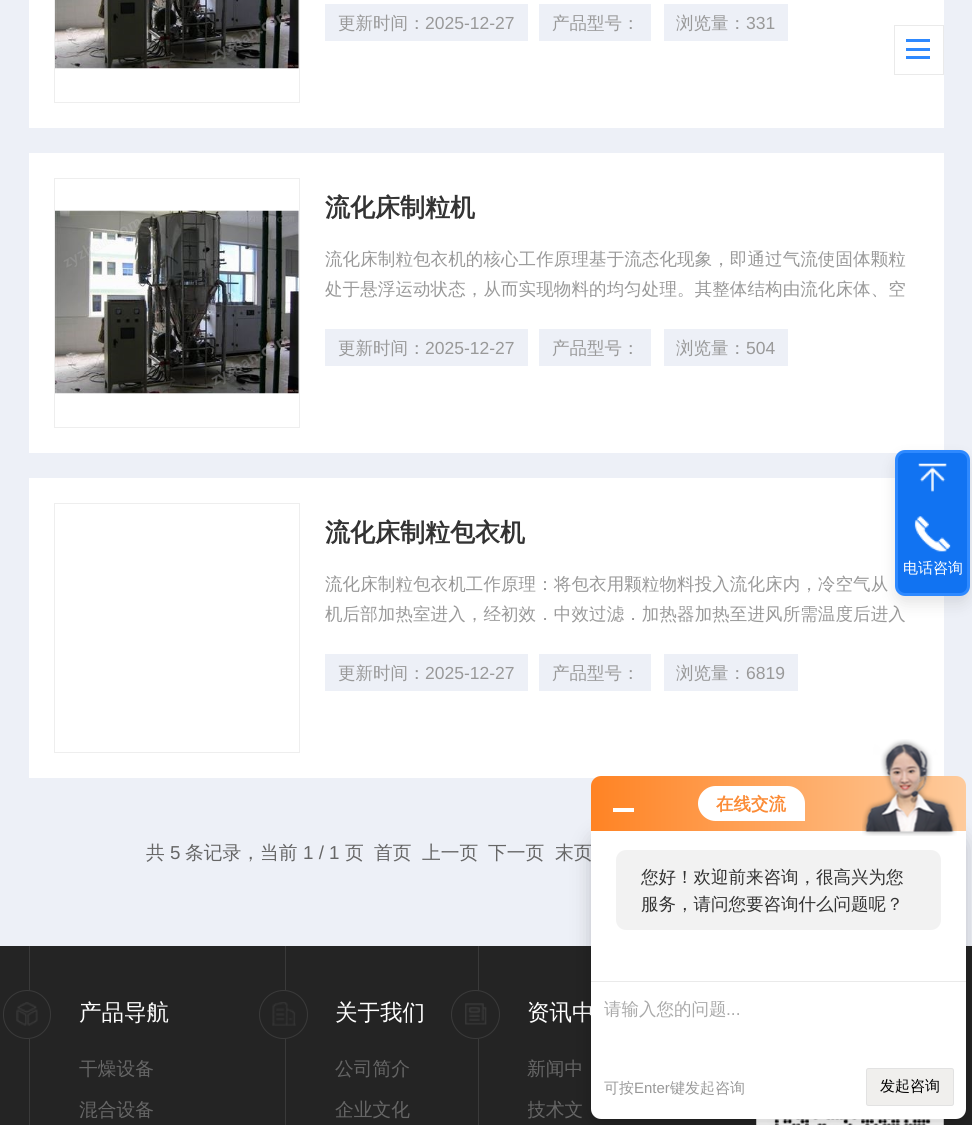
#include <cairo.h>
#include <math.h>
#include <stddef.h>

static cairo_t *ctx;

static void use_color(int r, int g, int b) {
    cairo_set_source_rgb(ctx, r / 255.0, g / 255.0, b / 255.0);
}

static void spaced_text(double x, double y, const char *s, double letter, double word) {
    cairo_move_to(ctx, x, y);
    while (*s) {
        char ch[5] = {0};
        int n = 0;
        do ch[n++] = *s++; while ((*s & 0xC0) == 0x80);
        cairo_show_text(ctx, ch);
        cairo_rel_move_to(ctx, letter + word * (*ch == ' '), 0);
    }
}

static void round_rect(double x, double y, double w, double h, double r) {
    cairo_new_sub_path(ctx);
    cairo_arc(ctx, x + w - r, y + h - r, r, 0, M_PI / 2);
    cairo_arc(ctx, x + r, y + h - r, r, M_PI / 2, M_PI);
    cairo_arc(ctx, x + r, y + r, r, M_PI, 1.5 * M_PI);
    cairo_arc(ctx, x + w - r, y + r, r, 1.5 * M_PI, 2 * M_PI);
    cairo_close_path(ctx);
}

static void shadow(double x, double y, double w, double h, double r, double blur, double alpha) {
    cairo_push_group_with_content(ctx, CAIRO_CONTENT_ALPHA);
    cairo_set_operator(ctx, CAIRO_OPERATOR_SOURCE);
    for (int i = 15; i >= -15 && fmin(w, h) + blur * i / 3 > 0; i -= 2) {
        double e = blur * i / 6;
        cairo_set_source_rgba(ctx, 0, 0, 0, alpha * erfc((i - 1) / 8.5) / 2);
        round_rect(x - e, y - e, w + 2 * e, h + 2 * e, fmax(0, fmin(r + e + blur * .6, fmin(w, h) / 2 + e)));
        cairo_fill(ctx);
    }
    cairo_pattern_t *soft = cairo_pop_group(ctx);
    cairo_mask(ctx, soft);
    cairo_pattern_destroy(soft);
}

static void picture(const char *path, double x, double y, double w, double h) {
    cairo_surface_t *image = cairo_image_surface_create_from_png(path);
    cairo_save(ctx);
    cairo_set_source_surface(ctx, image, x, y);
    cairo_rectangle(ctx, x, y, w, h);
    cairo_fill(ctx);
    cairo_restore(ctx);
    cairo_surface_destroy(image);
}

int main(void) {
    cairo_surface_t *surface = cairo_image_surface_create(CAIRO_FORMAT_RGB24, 972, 1125);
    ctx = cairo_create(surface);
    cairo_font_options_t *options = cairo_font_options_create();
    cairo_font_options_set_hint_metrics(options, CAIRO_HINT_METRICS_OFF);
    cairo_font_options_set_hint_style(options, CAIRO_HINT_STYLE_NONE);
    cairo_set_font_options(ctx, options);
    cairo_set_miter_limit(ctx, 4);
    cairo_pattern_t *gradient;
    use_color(237, 240, 247);
    cairo_paint(ctx);
    use_color(255, 255, 255);
    cairo_rectangle(ctx, 29, 0, 915, 128);
    cairo_fill(ctx);
    cairo_rectangle(ctx, 54.5, -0.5, 245, 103);
    use_color(238, 238, 238);
    cairo_set_line_width(ctx, 1);
    cairo_stroke(ctx);
    picture("img1.png", 55, 0, 244, 69);
    use_color(237, 240, 247);
    cairo_rectangle(ctx, 325, 4, 203, 37);
    cairo_fill(ctx);
    cairo_select_font_face(ctx, "WenQuanYi Zen Hei Medium", CAIRO_FONT_SLANT_NORMAL, CAIRO_FONT_WEIGHT_NORMAL);
    cairo_set_font_size(ctx, 17.5);
    use_color(153, 153, 153);
    cairo_move_to(ctx, 338, 29);
    cairo_show_text(ctx, "更新时间：");
    cairo_select_font_face(ctx, "Liberation Sans", CAIRO_FONT_SLANT_NORMAL, CAIRO_FONT_WEIGHT_NORMAL);
    cairo_move_to(ctx, 425, 29);
    cairo_show_text(ctx, "2025-12-27");
    use_color(237, 240, 247);
    cairo_rectangle(ctx, 539, 4, 112, 37);
    cairo_fill(ctx);
    cairo_select_font_face(ctx, "WenQuanYi Zen Hei Medium", CAIRO_FONT_SLANT_NORMAL, CAIRO_FONT_WEIGHT_NORMAL);
    use_color(153, 153, 153);
    cairo_move_to(ctx, 552, 29);
    cairo_show_text(ctx, "产品型号：");
    use_color(237, 240, 247);
    cairo_rectangle(ctx, 664, 4, 124, 37);
    cairo_fill(ctx);
    use_color(153, 153, 153);
    cairo_move_to(ctx, 676, 29);
    cairo_show_text(ctx, "浏览量：");
    cairo_select_font_face(ctx, "Liberation Sans", CAIRO_FONT_SLANT_NORMAL, CAIRO_FONT_WEIGHT_NORMAL);
    cairo_move_to(ctx, 746, 29);
    cairo_show_text(ctx, "331");
    use_color(255, 255, 255);
    cairo_rectangle(ctx, 29, 153, 915, 300);
    cairo_fill(ctx);
    cairo_rectangle(ctx, 54.5, 178.5, 245, 249);
    use_color(238, 238, 238);
    cairo_stroke(ctx);
    picture("img2.png", 55, 210, 244, 184);
    cairo_select_font_face(ctx, "WenQuanYi Zen Hei", CAIRO_FONT_SLANT_NORMAL, CAIRO_FONT_WEIGHT_BOLD);
    cairo_set_font_size(ctx, 25);
    use_color(51, 51, 51);
    cairo_move_to(ctx, 325, 216);
    cairo_show_text(ctx, "流化床制粒机");
    cairo_select_font_face(ctx, "WenQuanYi Zen Hei Medium", CAIRO_FONT_SLANT_NORMAL, CAIRO_FONT_WEIGHT_NORMAL);
    cairo_set_font_size(ctx, 17.5);
    use_color(153, 153, 153);
    spaced_text(325, 265, "流化床制粒包衣机的核心工作原理基于流态化现象，即通过气流使固体颗粒", 0.1, 0);
    spaced_text(325, 295, "处于悬浮运动状态，从而实现物料的均匀处理。其整体结构由流化床体、空", 0.1, 0);
    use_color(237, 240, 247);
    cairo_rectangle(ctx, 325, 329, 203, 37);
    cairo_fill(ctx);
    use_color(153, 153, 153);
    cairo_move_to(ctx, 338, 354);
    cairo_show_text(ctx, "更新时间：");
    cairo_select_font_face(ctx, "Liberation Sans", CAIRO_FONT_SLANT_NORMAL, CAIRO_FONT_WEIGHT_NORMAL);
    cairo_move_to(ctx, 425, 354);
    cairo_show_text(ctx, "2025-12-27");
    use_color(237, 240, 247);
    cairo_rectangle(ctx, 539, 329, 112, 37);
    cairo_fill(ctx);
    cairo_select_font_face(ctx, "WenQuanYi Zen Hei Medium", CAIRO_FONT_SLANT_NORMAL, CAIRO_FONT_WEIGHT_NORMAL);
    use_color(153, 153, 153);
    cairo_move_to(ctx, 552, 354);
    cairo_show_text(ctx, "产品型号：");
    use_color(237, 240, 247);
    cairo_rectangle(ctx, 664, 329, 124, 37);
    cairo_fill(ctx);
    use_color(153, 153, 153);
    cairo_move_to(ctx, 676, 354);
    cairo_show_text(ctx, "浏览量：");
    cairo_select_font_face(ctx, "Liberation Sans", CAIRO_FONT_SLANT_NORMAL, CAIRO_FONT_WEIGHT_NORMAL);
    cairo_move_to(ctx, 746, 354);
    cairo_show_text(ctx, "504");
    use_color(255, 255, 255);
    cairo_rectangle(ctx, 29, 478, 915, 300);
    cairo_fill(ctx);
    cairo_rectangle(ctx, 54.5, 503.5, 245, 249);
    use_color(238, 238, 238);
    cairo_stroke(ctx);
    cairo_select_font_face(ctx, "WenQuanYi Zen Hei", CAIRO_FONT_SLANT_NORMAL, CAIRO_FONT_WEIGHT_BOLD);
    cairo_set_font_size(ctx, 25);
    use_color(51, 51, 51);
    cairo_move_to(ctx, 325, 541);
    cairo_show_text(ctx, "流化床制粒包衣机");
    cairo_select_font_face(ctx, "WenQuanYi Zen Hei Medium", CAIRO_FONT_SLANT_NORMAL, CAIRO_FONT_WEIGHT_NORMAL);
    cairo_set_font_size(ctx, 17.5);
    use_color(153, 153, 153);
    spaced_text(325, 590, "流化床制粒包衣机工作原理：将包衣用颗粒物料投入流化床内，冷空气从", 0.1, 0);
    spaced_text(325, 620, "机后部加热室进入，经初效．中效过滤．加热器加热至进风所需温度后进入", 0.1, 0);
    use_color(237, 240, 247);
    cairo_rectangle(ctx, 325, 654, 203, 37);
    cairo_fill(ctx);
    use_color(153, 153, 153);
    cairo_move_to(ctx, 338, 679);
    cairo_show_text(ctx, "更新时间：");
    cairo_select_font_face(ctx, "Liberation Sans", CAIRO_FONT_SLANT_NORMAL, CAIRO_FONT_WEIGHT_NORMAL);
    cairo_move_to(ctx, 425, 679);
    cairo_show_text(ctx, "2025-12-27");
    use_color(237, 240, 247);
    cairo_rectangle(ctx, 539, 654, 112, 37);
    cairo_fill(ctx);
    cairo_select_font_face(ctx, "WenQuanYi Zen Hei Medium", CAIRO_FONT_SLANT_NORMAL, CAIRO_FONT_WEIGHT_NORMAL);
    use_color(153, 153, 153);
    cairo_move_to(ctx, 552, 679);
    cairo_show_text(ctx, "产品型号：");
    use_color(237, 240, 247);
    cairo_rectangle(ctx, 664, 654, 134, 37);
    cairo_fill(ctx);
    use_color(153, 153, 153);
    cairo_move_to(ctx, 676, 679);
    cairo_show_text(ctx, "浏览量：");
    cairo_select_font_face(ctx, "Liberation Sans", CAIRO_FONT_SLANT_NORMAL, CAIRO_FONT_WEIGHT_NORMAL);
    cairo_move_to(ctx, 746, 679);
    cairo_show_text(ctx, "6819");
    cairo_select_font_face(ctx, "WenQuanYi Zen Hei Medium", CAIRO_FONT_SLANT_NORMAL, CAIRO_FONT_WEIGHT_NORMAL);
    cairo_set_font_size(ctx, 18.75);
    use_color(102, 102, 102);
    cairo_move_to(ctx, 146, 859);
    cairo_show_text(ctx, "共");
    cairo_select_font_face(ctx, "Liberation Sans", CAIRO_FONT_SLANT_NORMAL, CAIRO_FONT_WEIGHT_NORMAL);
    cairo_move_to(ctx, 170, 859);
    cairo_show_text(ctx, "5");
    cairo_select_font_face(ctx, "WenQuanYi Zen Hei Medium", CAIRO_FONT_SLANT_NORMAL, CAIRO_FONT_WEIGHT_NORMAL);
    cairo_move_to(ctx, 185, 859);
    cairo_show_text(ctx, "条记录，当前");
    cairo_select_font_face(ctx, "Liberation Sans", CAIRO_FONT_SLANT_NORMAL, CAIRO_FONT_WEIGHT_NORMAL);
    cairo_move_to(ctx, 303, 859);
    cairo_show_text(ctx, "1 / 1");
    cairo_select_font_face(ctx, "WenQuanYi Zen Hei Medium", CAIRO_FONT_SLANT_NORMAL, CAIRO_FONT_WEIGHT_NORMAL);
    cairo_move_to(ctx, 345, 859);
    cairo_show_text(ctx, "页");
    cairo_move_to(ctx, 374, 859);
    cairo_show_text(ctx, "首页");
    cairo_move_to(ctx, 422, 859);
    cairo_show_text(ctx, "上一页");
    cairo_move_to(ctx, 488, 859);
    cairo_show_text(ctx, "下一页");
    cairo_move_to(ctx, 555, 859);
    cairo_show_text(ctx, "末页");
    cairo_rectangle(ctx, 894.5, 25.5, 49, 49);
    use_color(234, 234, 234);
    cairo_stroke(ctx);
    use_color(46, 137, 255);
    cairo_rectangle(ctx, 906, 39, 24, 3);
    cairo_fill(ctx);
    cairo_rectangle(ctx, 906, 48, 24, 3);
    cairo_fill(ctx);
    cairo_rectangle(ctx, 906, 56, 24, 3);
    cairo_fill(ctx);
    use_color(0, 0, 0);
    shadow(895, 458, 75, 146, 10, 7.5, 0.1);
    use_color(17, 115, 242);
    round_rect(896.5, 451.5, 72, 143, 8.5);
    cairo_fill_preserve(ctx);
    use_color(46, 137, 255);
    cairo_set_line_width(ctx, 3);
    cairo_stroke(ctx);
    picture("img3.png", 918, 463, 29, 29);
    picture("img4.png", 914, 516, 37, 36);
    cairo_set_font_size(ctx, 15);
    use_color(255, 255, 255);
    cairo_move_to(ctx, 903, 573);
    cairo_show_text(ctx, "电话咨询");
    use_color(36, 36, 36);
    cairo_rectangle(ctx, 0, 946, 972, 179);
    cairo_fill(ctx);
    use_color(58, 58, 58);
    cairo_rectangle(ctx, 29, 946, 1, 179);
    cairo_fill(ctx);
    use_color(36, 36, 36);
    round_rect(3, 990, 48, 49, 24);
    cairo_fill(ctx);
    picture("img5.png", 16, 1002, 22, 24);
    round_rect(3.5, 990.5, 47, 48, 23.5);
    use_color(58, 58, 58);
    cairo_set_line_width(ctx, 1);
    cairo_stroke(ctx);
    cairo_set_font_size(ctx, 22.5);
    use_color(255, 255, 255);
    cairo_move_to(ctx, 79, 1020);
    cairo_show_text(ctx, "产品导航");
    cairo_set_font_size(ctx, 18.75);
    use_color(102, 102, 102);
    cairo_move_to(ctx, 79, 1075);
    cairo_show_text(ctx, "干燥设备");
    cairo_move_to(ctx, 79, 1116);
    cairo_show_text(ctx, "混合设备");
    use_color(58, 58, 58);
    cairo_rectangle(ctx, 285, 946, 1, 179);
    cairo_fill(ctx);
    use_color(36, 36, 36);
    cairo_arc(ctx, 283.5, 1014.5, 24.5, 0, 2 * M_PI);
    cairo_fill(ctx);
    picture("img6.png", 272, 1002, 24, 24);
    cairo_arc(ctx, 283.5, 1014.5, 24, 0, 2 * M_PI);
    use_color(58, 58, 58);
    cairo_stroke(ctx);
    cairo_set_font_size(ctx, 22.5);
    use_color(255, 255, 255);
    cairo_move_to(ctx, 335, 1020);
    cairo_show_text(ctx, "关于我们");
    cairo_set_font_size(ctx, 18.75);
    use_color(102, 102, 102);
    cairo_move_to(ctx, 335, 1075);
    cairo_show_text(ctx, "公司简介");
    cairo_move_to(ctx, 335, 1116);
    cairo_show_text(ctx, "企业文化");
    use_color(58, 58, 58);
    cairo_rectangle(ctx, 478, 946, 1, 179);
    cairo_fill(ctx);
    use_color(36, 36, 36);
    cairo_arc(ctx, 475.5, 1014.5, 24.5, 0, 2 * M_PI);
    cairo_fill(ctx);
    picture("img7.png", 465, 1003, 22, 22);
    cairo_arc(ctx, 475.5, 1014.5, 24, 0, 2 * M_PI);
    use_color(58, 58, 58);
    cairo_stroke(ctx);
    cairo_set_font_size(ctx, 22.5);
    use_color(255, 255, 255);
    cairo_move_to(ctx, 527, 1020);
    cairo_show_text(ctx, "资讯中");
    cairo_set_font_size(ctx, 18.75);
    use_color(102, 102, 102);
    cairo_move_to(ctx, 527, 1075);
    cairo_show_text(ctx, "新闻中");
    cairo_save(ctx);
    cairo_rectangle(ctx, 528, 1096, 141, 28);
    cairo_clip(ctx);
    cairo_move_to(ctx, 527, 1116);
    cairo_show_text(ctx, "技术文");
    cairo_restore(ctx);
    picture("img8.png", 756, 1119, 188, 6);
    use_color(0, 0, 0);
    shadow(591, 836, 375, 288, 10, 10, 0.2);
    gradient = cairo_pattern_create_linear(591, 804, 966, 804);
    cairo_pattern_add_color_stop_rgba(gradient, 0, 1, 0.514, 0.141, 1);
    cairo_pattern_add_color_stop_rgba(gradient, 1, 0.996, 0.796, 0.612, 1);
    cairo_set_source(ctx, gradient);
    cairo_pattern_destroy(gradient);
    cairo_new_path(ctx);
    cairo_move_to(ctx, 601, 776);
    cairo_line_to(ctx, 956, 776);
    cairo_curve_to(ctx, 961.5, 776, 966, 780.5, 966, 786);
    cairo_line_to(ctx, 966, 831);
    cairo_line_to(ctx, 591, 831);
    cairo_line_to(ctx, 591, 786);
    cairo_curve_to(ctx, 591, 780.5, 595.5, 776, 601, 776);
    cairo_close_path(ctx);
    cairo_fill(ctx);
    use_color(255, 255, 255);
    cairo_rectangle(ctx, 613, 808, 21, 4);
    cairo_fill(ctx);
    cairo_new_path(ctx);
    cairo_move_to(ctx, 715.5, 786);
    cairo_line_to(ctx, 787.5, 786);
    cairo_curve_to(ctx, 797, 786, 805, 794, 805, 803.5);
    cairo_line_to(ctx, 805, 821);
    cairo_line_to(ctx, 715.5, 821);
    cairo_curve_to(ctx, 706, 821, 698, 813, 698, 803.5);
    cairo_curve_to(ctx, 698, 794, 706, 786, 715.5, 786);
    cairo_close_path(ctx);
    cairo_fill(ctx);
    cairo_select_font_face(ctx, "WenQuanYi Zen Hei", CAIRO_FONT_SLANT_NORMAL, CAIRO_FONT_WEIGHT_BOLD);
    cairo_set_font_size(ctx, 17.5);
    use_color(251, 139, 54);
    cairo_move_to(ctx, 716, 810);
    cairo_show_text(ctx, "在线交流");
    use_color(255, 255, 255);
    cairo_new_path(ctx);
    cairo_move_to(ctx, 591, 831);
    cairo_line_to(ctx, 966, 831);
    cairo_line_to(ctx, 966, 1109);
    cairo_curve_to(ctx, 966, 1114.5, 961.5, 1119, 956, 1119);
    cairo_line_to(ctx, 601, 1119);
    cairo_curve_to(ctx, 595.5, 1119, 591, 1114.5, 591, 1109);
    cairo_close_path(ctx);
    cairo_fill(ctx);
    picture("img9.png", 862, 739, 95, 97);
    use_color(242, 242, 242);
    round_rect(616, 850, 325, 80, 10);
    cairo_fill(ctx);
    cairo_select_font_face(ctx, "WenQuanYi Zen Hei Medium", CAIRO_FONT_SLANT_NORMAL, CAIRO_FONT_WEIGHT_NORMAL);
    use_color(51, 51, 51);
    cairo_move_to(ctx, 641, 883);
    cairo_show_text(ctx, "您好！欢迎前来咨询，很高兴为您");
    cairo_move_to(ctx, 641, 910);
    cairo_show_text(ctx, "服务，请问您要咨询什么问题呢？");
    use_color(234, 234, 234);
    cairo_rectangle(ctx, 591, 981, 375, 1);
    cairo_fill(ctx);
    use_color(170, 170, 170);
    cairo_move_to(ctx, 604, 1015);
    cairo_show_text(ctx, "请输入您的问题");
    cairo_select_font_face(ctx, "Liberation Sans", CAIRO_FONT_SLANT_NORMAL, CAIRO_FONT_WEIGHT_NORMAL);
    cairo_move_to(ctx, 726, 1015);
    cairo_show_text(ctx, "...");
    cairo_select_font_face(ctx, "WenQuanYi Zen Hei Medium", CAIRO_FONT_SLANT_NORMAL, CAIRO_FONT_WEIGHT_NORMAL);
    cairo_set_font_size(ctx, 15);
    use_color(153, 153, 153);
    cairo_move_to(ctx, 604, 1093);
    cairo_show_text(ctx, "可按");
    cairo_select_font_face(ctx, "Liberation Sans", CAIRO_FONT_SLANT_NORMAL, CAIRO_FONT_WEIGHT_NORMAL);
    cairo_move_to(ctx, 634, 1093);
    cairo_show_text(ctx, "Enter");
    cairo_select_font_face(ctx, "WenQuanYi Zen Hei Medium", CAIRO_FONT_SLANT_NORMAL, CAIRO_FONT_WEIGHT_NORMAL);
    cairo_move_to(ctx, 670, 1093);
    cairo_show_text(ctx, "键发起咨询");
    use_color(240, 239, 237);
    round_rect(866.5, 1068.5, 87, 37, 2);
    cairo_fill_preserve(ctx);
    use_color(226, 226, 226);
    cairo_stroke(ctx);
    use_color(0, 0, 0);
    cairo_move_to(ctx, 880, 1091);
    cairo_show_text(ctx, "发起咨询");
    cairo_surface_write_to_png(surface, "result.png");
    cairo_font_options_destroy(options);
    cairo_destroy(ctx);
    cairo_surface_destroy(surface);
    return 0;
}
